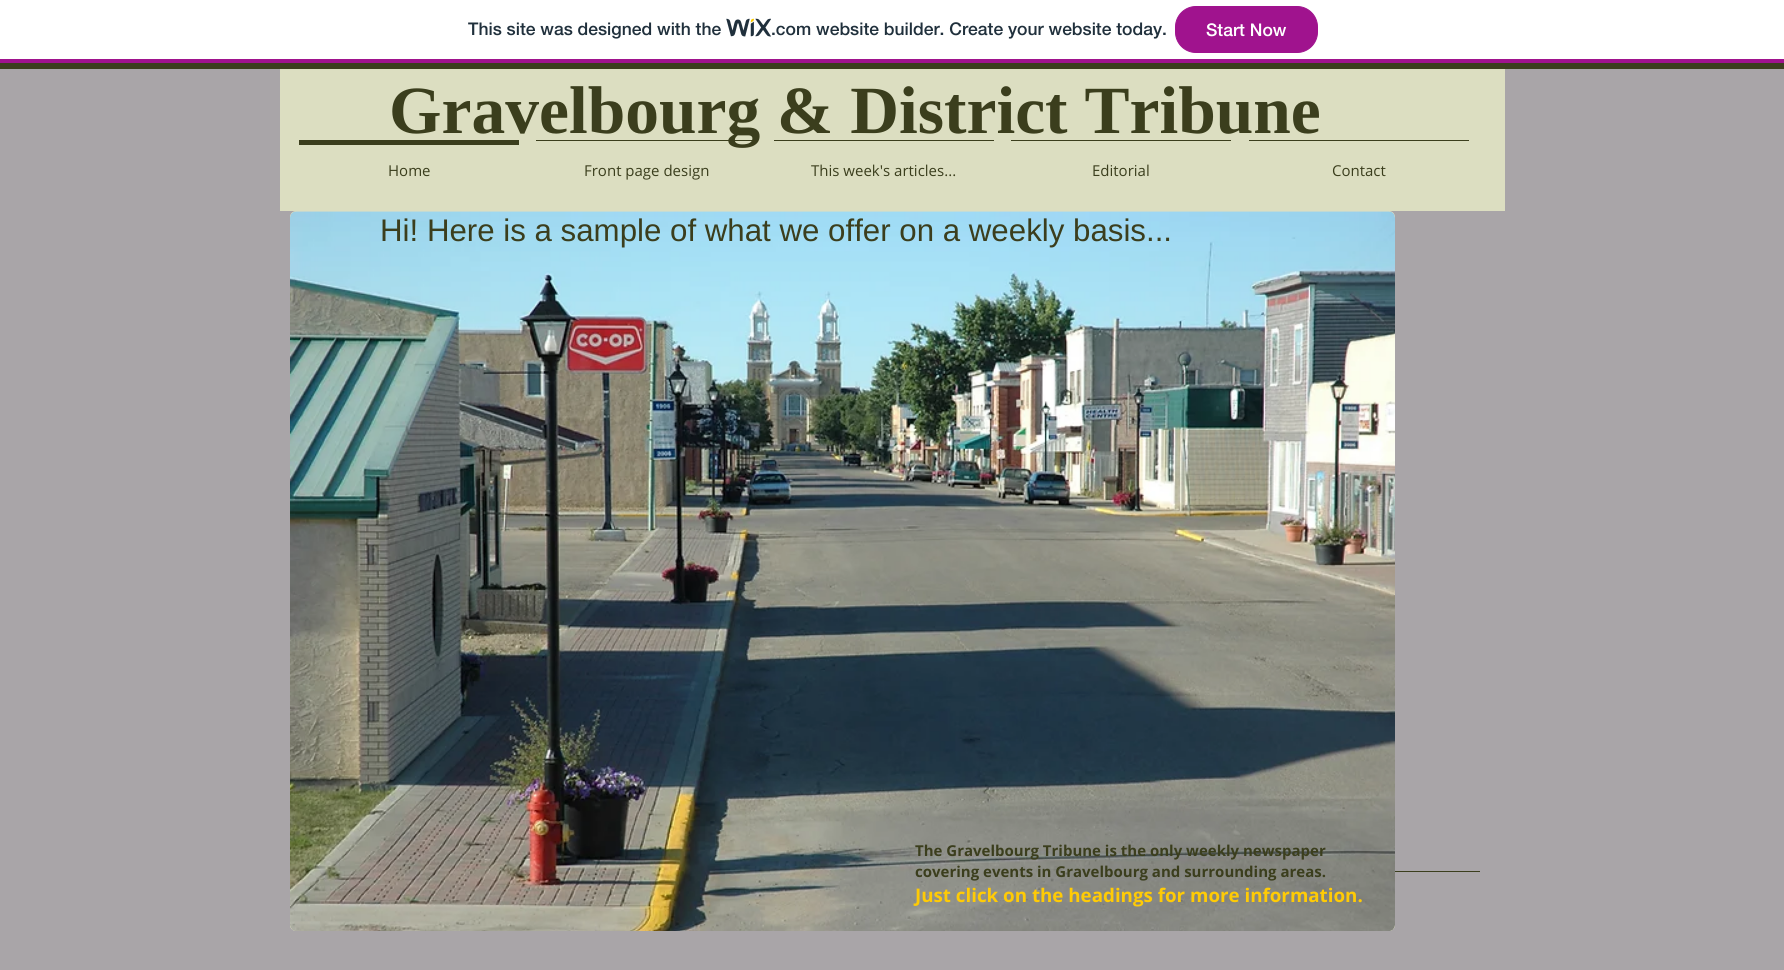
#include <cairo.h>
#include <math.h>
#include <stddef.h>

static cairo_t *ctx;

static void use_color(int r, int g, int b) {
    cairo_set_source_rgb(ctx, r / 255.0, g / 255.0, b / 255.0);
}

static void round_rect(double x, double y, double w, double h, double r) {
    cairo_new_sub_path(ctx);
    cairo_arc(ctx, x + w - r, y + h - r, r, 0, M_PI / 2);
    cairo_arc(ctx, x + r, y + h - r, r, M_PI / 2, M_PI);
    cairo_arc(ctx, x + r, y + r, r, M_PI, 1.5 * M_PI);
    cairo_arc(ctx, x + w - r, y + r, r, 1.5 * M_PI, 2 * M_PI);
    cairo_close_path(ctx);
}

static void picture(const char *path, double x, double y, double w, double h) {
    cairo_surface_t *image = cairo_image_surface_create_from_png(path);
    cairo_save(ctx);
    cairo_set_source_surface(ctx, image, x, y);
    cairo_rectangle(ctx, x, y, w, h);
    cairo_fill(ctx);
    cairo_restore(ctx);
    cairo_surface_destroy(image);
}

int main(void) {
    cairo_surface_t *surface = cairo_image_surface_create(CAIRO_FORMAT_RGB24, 1784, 970);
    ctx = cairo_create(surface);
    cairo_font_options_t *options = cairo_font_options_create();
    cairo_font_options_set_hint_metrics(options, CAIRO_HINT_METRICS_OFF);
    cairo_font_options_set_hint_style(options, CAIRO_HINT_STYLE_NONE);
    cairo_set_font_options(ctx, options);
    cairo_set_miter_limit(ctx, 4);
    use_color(255, 255, 255);
    cairo_paint(ctx);
    use_color(160, 19, 142);
    cairo_rectangle(ctx, 0, 59, 1784, 4);
    cairo_fill(ctx);
    cairo_select_font_face(ctx, "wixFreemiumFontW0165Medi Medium", CAIRO_FONT_SLANT_NORMAL, CAIRO_FONT_WEIGHT_NORMAL);
    cairo_set_font_size(ctx, 17.5);
    use_color(32, 48, 60);
    cairo_move_to(ctx, 468, 35);
    cairo_show_text(ctx, "This site was designed with the");
    picture("img1.png", 726, 18, 45, 19);
    cairo_move_to(ctx, 771, 35);
    cairo_show_text(ctx, ".com website builder. Create your website today.");
    use_color(160, 19, 142);
    round_rect(1175.5, 6.5, 142, 46, 20.5);
    cairo_fill_preserve(ctx);
    cairo_set_line_width(ctx, 1);
    cairo_stroke(ctx);
    use_color(255, 255, 255);
    cairo_move_to(ctx, 1206, 36);
    cairo_show_text(ctx, "Start Now");
    use_color(169, 165, 168);
    cairo_rectangle(ctx, 0, 69, 1784, 901);
    cairo_fill(ctx);
    use_color(59, 62, 29);
    cairo_rectangle(ctx, 0, 63, 1784, 6);
    cairo_fill(ctx);
    use_color(220, 222, 193);
    cairo_rectangle(ctx, 280, 69, 1225, 142);
    cairo_fill(ctx);
    cairo_select_font_face(ctx, "Liberation Serif", CAIRO_FONT_SLANT_NORMAL, CAIRO_FONT_WEIGHT_BOLD);
    cairo_set_font_size(ctx, 67.5);
    use_color(59, 62, 29);
    cairo_move_to(ctx, 389, 133);
    cairo_show_text(ctx, "Gravelbourg & District Tribune");
    cairo_rectangle(ctx, 299, 140, 220, 5);
    cairo_fill(ctx);
    cairo_select_font_face(ctx, "Open Sans", CAIRO_FONT_SLANT_NORMAL, CAIRO_FONT_WEIGHT_NORMAL);
    cairo_set_font_size(ctx, 15);
    cairo_move_to(ctx, 388, 176);
    cairo_show_text(ctx, "Home");
    cairo_rectangle(ctx, 536, 140, 220, 1);
    cairo_fill(ctx);
    cairo_move_to(ctx, 584, 176);
    cairo_show_text(ctx, "Front page design");
    cairo_rectangle(ctx, 774, 140, 220, 1);
    cairo_fill(ctx);
    cairo_move_to(ctx, 811, 176);
    cairo_show_text(ctx, "This week's articles...");
    cairo_rectangle(ctx, 1011, 140, 220, 1);
    cairo_fill(ctx);
    cairo_move_to(ctx, 1092, 176);
    cairo_show_text(ctx, "Editorial");
    cairo_rectangle(ctx, 1249, 140, 220, 1);
    cairo_fill(ctx);
    cairo_move_to(ctx, 1332, 176);
    cairo_show_text(ctx, "Contact");
    use_color(220, 222, 193);
    round_rect(290, 211, 1105, 720, 6);
    cairo_fill(ctx);
    picture("img2.png", 290, 211, 1105, 720);
    cairo_select_font_face(ctx, "Liberation Sans", CAIRO_FONT_SLANT_NORMAL, CAIRO_FONT_WEIGHT_NORMAL);
    cairo_set_font_size(ctx, 31.25);
    use_color(59, 62, 29);
    cairo_move_to(ctx, 380, 241);
    cairo_show_text(ctx, "Hi! Here is a sample of what we offer on a weekly basis...");
    cairo_select_font_face(ctx, "Open Sans", CAIRO_FONT_SLANT_NORMAL, CAIRO_FONT_WEIGHT_BOLD);
    cairo_set_font_size(ctx, 15);
    cairo_move_to(ctx, 915, 856);
    cairo_show_text(ctx, "The Gravelbourg Tribune is the only weekly newspaper");
    cairo_move_to(ctx, 915, 877);
    cairo_show_text(ctx, "covering events in Gravelbourg and surrounding areas.");
    cairo_set_font_size(ctx, 18.75);
    use_color(255, 203, 5);
    cairo_move_to(ctx, 915, 902);
    cairo_show_text(ctx, "Just click on the headings for more information.");
    use_color(59, 62, 29);
    cairo_rectangle(ctx, 1395, 871, 85, 1);
    cairo_fill(ctx);
    cairo_surface_write_to_png(surface, "result.png");
    cairo_font_options_destroy(options);
    cairo_destroy(ctx);
    cairo_surface_destroy(surface);
    return 0;
}
